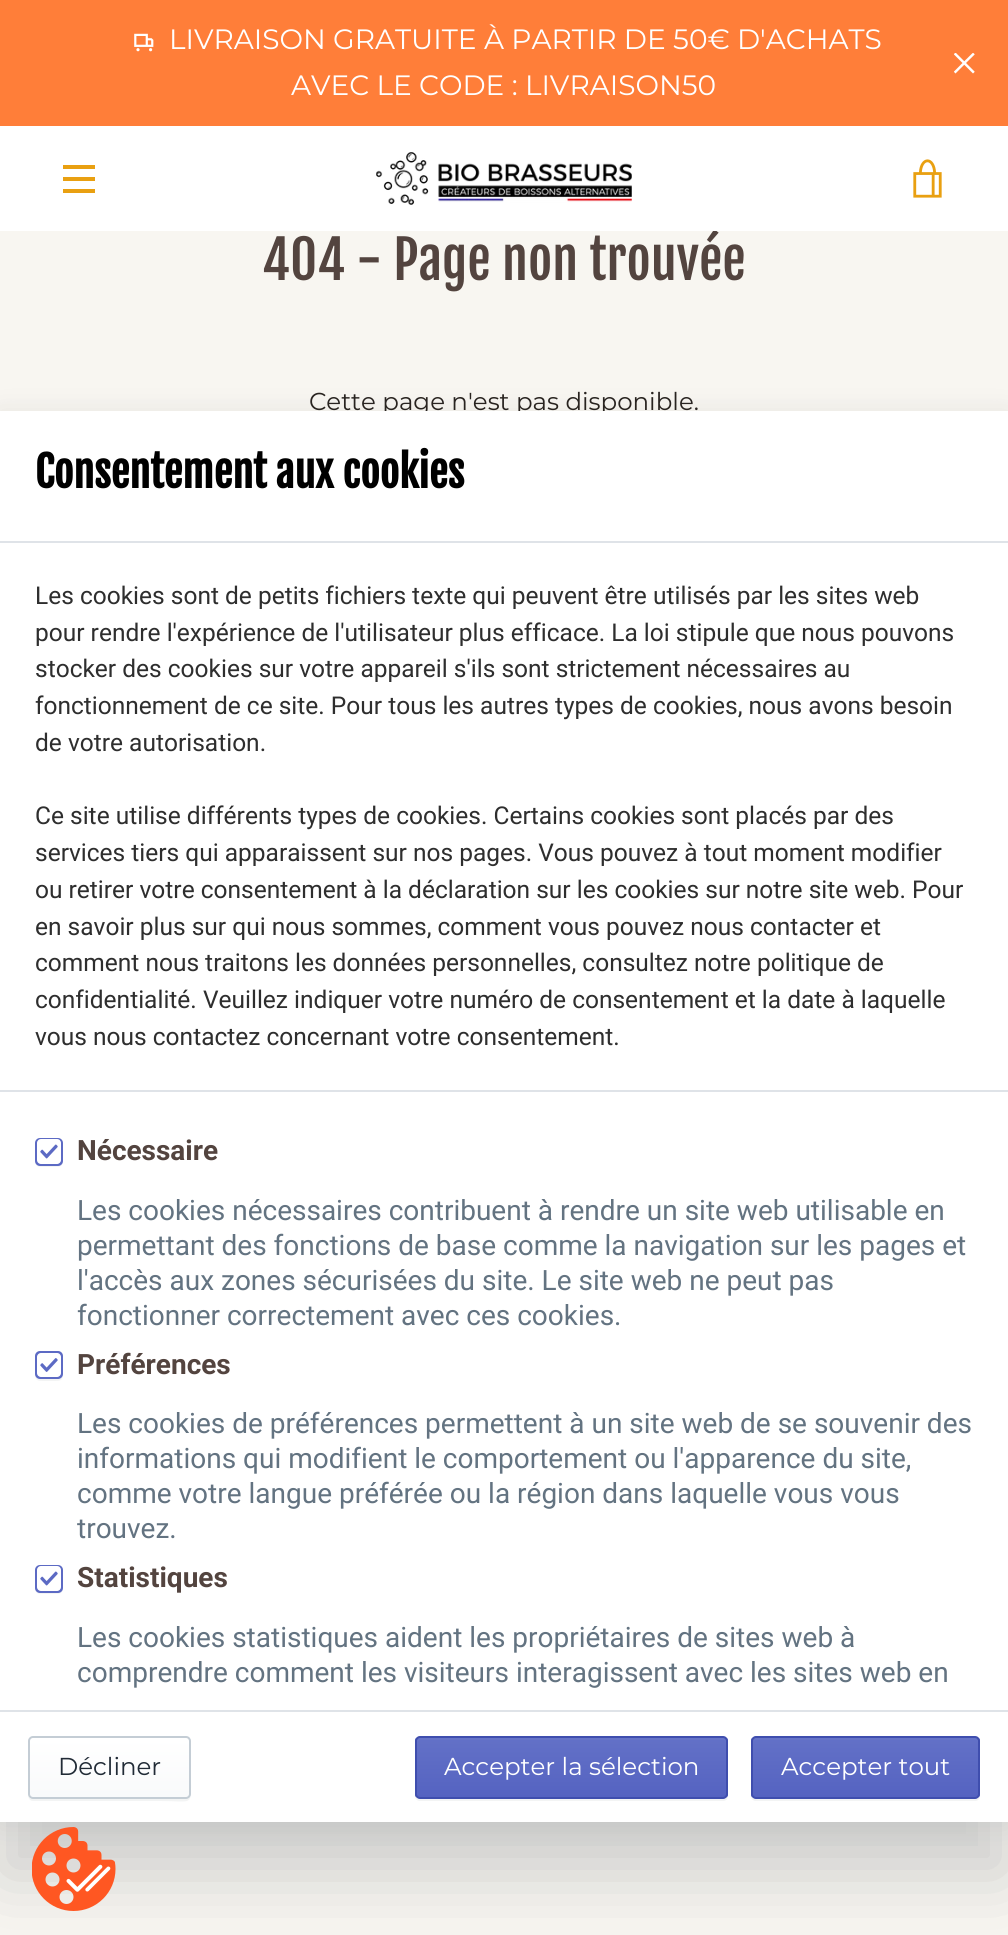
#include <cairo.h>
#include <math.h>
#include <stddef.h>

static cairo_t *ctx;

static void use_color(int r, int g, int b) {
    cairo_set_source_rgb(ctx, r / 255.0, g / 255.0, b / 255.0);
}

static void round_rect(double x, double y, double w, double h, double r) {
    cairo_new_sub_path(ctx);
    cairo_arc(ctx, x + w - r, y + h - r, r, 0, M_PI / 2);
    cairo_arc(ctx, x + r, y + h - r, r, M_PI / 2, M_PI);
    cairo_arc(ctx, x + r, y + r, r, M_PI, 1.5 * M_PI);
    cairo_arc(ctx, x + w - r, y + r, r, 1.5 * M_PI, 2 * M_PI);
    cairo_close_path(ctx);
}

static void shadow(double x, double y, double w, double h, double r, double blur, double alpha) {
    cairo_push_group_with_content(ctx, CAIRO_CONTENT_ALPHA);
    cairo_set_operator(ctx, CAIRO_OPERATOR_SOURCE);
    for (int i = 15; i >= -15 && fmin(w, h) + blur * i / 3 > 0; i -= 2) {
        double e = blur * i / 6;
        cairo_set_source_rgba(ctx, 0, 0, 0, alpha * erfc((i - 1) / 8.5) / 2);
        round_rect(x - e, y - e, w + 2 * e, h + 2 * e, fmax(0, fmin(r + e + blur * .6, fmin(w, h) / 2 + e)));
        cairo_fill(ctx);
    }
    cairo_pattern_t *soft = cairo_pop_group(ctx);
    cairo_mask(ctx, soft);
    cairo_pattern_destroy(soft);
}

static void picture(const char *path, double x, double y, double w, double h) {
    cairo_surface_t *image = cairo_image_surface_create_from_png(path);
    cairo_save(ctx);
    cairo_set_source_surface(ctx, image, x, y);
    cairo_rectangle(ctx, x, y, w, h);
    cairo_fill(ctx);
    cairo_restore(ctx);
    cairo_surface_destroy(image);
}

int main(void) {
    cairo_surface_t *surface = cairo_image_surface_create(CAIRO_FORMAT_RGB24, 1008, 1935);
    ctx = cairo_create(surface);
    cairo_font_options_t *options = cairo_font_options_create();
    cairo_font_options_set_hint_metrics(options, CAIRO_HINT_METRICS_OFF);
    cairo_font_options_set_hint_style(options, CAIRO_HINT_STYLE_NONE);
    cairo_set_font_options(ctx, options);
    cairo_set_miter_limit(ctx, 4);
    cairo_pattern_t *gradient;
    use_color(248, 246, 241);
    cairo_paint(ctx);
    cairo_select_font_face(ctx, "Fjalla One", CAIRO_FONT_SLANT_NORMAL, CAIRO_FONT_WEIGHT_NORMAL);
    cairo_set_font_size(ctx, 52.5);
    use_color(83, 68, 63);
    cairo_move_to(ctx, 262, 280);
    cairo_show_text(ctx, "404 - Page non trouvée");
    use_color(255, 255, 255);
    cairo_rectangle(ctx, 0, 126, 1008, 105);
    cairo_fill(ctx);
    use_color(255, 126, 57);
    cairo_rectangle(ctx, 0, 0, 1008, 126);
    cairo_fill(ctx);
    picture("img1.png", 134, 33, 20, 19);
    cairo_select_font_face(ctx, "Montserrat", CAIRO_FONT_SLANT_NORMAL, CAIRO_FONT_WEIGHT_NORMAL);
    cairo_set_font_size(ctx, 28);
    use_color(255, 255, 255);
    cairo_move_to(ctx, 169, 49);
    cairo_show_text(ctx, "LIVRAISON GRATUITE À PARTIR DE 50€ D'ACHATS");
    cairo_move_to(ctx, 291, 95);
    cairo_show_text(ctx, "AVEC LE CODE : LIVRAISON50");
    picture("img2.png", 954, 53, 21, 21);
    use_color(233, 160, 17);
    cairo_rectangle(ctx, 63, 165, 32, 4);
    cairo_fill(ctx);
    cairo_rectangle(ctx, 63, 177, 32, 4);
    cairo_fill(ctx);
    cairo_rectangle(ctx, 63, 189, 32, 4);
    cairo_fill(ctx);
    picture("img3.png", 376, 152, 256, 53);
    picture("img4.png", 913, 159, 29, 39);
    cairo_set_font_size(ctx, 24.5);
    use_color(40, 35, 31);
    cairo_move_to(ctx, 309, 410);
    cairo_show_text(ctx, "Cette page n'est pas disponible.");
    use_color(32, 42, 54);
    shadow(0, 415, 1008, 1410, 0, 14, 0.08);
    use_color(32, 42, 53);
    shadow(0, 466, 1008, 1410, 0, 36, 0.2);
    use_color(255, 255, 255);
    cairo_rectangle(ctx, 0, 411, 1008, 1411);
    cairo_fill(ctx);
    use_color(223, 227, 232);
    cairo_rectangle(ctx, 0, 541, 1008, 2);
    cairo_fill(ctx);
    cairo_select_font_face(ctx, "Fjalla One", CAIRO_FONT_SLANT_NORMAL, CAIRO_FONT_WEIGHT_BOLD);
    cairo_set_font_size(ctx, 42);
    use_color(0, 0, 0);
    cairo_move_to(ctx, 35, 488);
    cairo_show_text(ctx, "Consentement aux cookies");
    use_color(223, 227, 232);
    cairo_rectangle(ctx, 0, 1090, 1008, 2);
    cairo_fill(ctx);
    cairo_select_font_face(ctx, "Roboto", CAIRO_FONT_SLANT_NORMAL, CAIRO_FONT_WEIGHT_NORMAL);
    cairo_set_font_size(ctx, 24.5);
    use_color(46, 46, 46);
    cairo_move_to(ctx, 35, 604);
    cairo_show_text(ctx, "Les cookies sont de petits fichiers texte qui peuvent être utilisés par les sites web");
    cairo_move_to(ctx, 35, 641);
    cairo_show_text(ctx, "pour rendre l'expérience de l'utilisateur plus efficace. La loi stipule que nous pouvons");
    cairo_move_to(ctx, 35, 677);
    cairo_show_text(ctx, "stocker des cookies sur votre appareil s'ils sont strictement nécessaires au");
    cairo_move_to(ctx, 35, 714);
    cairo_show_text(ctx, "fonctionnement de ce site. Pour tous les autres types de cookies, nous avons besoin");
    cairo_move_to(ctx, 35, 751);
    cairo_show_text(ctx, "de votre autorisation.");
    cairo_move_to(ctx, 35, 824);
    cairo_show_text(ctx, "Ce site utilise différents types de cookies. Certains cookies sont placés par des");
    cairo_move_to(ctx, 35, 861);
    cairo_show_text(ctx, "services tiers qui apparaissent sur nos pages. Vous pouvez à tout moment modifier");
    cairo_move_to(ctx, 35, 898);
    cairo_show_text(ctx, "ou retirer votre consentement à la déclaration sur les cookies sur notre site web. Pour");
    cairo_move_to(ctx, 35, 935);
    cairo_show_text(ctx, "en savoir plus sur qui nous sommes, comment vous pouvez nous contacter et");
    cairo_move_to(ctx, 35, 971);
    cairo_show_text(ctx, "comment nous traitons les données personnelles, consultez notre politique de");
    cairo_move_to(ctx, 35, 1008);
    cairo_show_text(ctx, "confidentialité. Veuillez indiquer votre numéro de consentement et la date à laquelle");
    cairo_move_to(ctx, 35, 1045);
    cairo_show_text(ctx, "vous nous contactez concernant votre consentement.");
    use_color(243, 244, 244);
    cairo_new_path(ctx);
    cairo_move_to(ctx, 35, 1160);
    cairo_curve_to(ctx, 35, 1166.5, 37.5, 1167, 43, 1167);
    cairo_line_to(ctx, 55, 1167);
    cairo_curve_to(ctx, 60.5, 1167, 63, 1166.5, 63, 1160);
    cairo_curve_to(ctx, 63, 1163, 60.5, 1165.5, 58, 1165.5);
    cairo_line_to(ctx, 40, 1165.5);
    cairo_curve_to(ctx, 37.5, 1165.5, 35, 1163, 35, 1160);
    cairo_close_path(ctx);
    cairo_fill(ctx);
    use_color(92, 106, 196);
    round_rect(35, 1138, 28, 28, 5);
    cairo_fill(ctx);
    use_color(255, 255, 255);
    round_rect(37, 1139, 24, 25, 4);
    cairo_fill(ctx);
    picture("img5.png", 40, 1144, 18, 15);
    cairo_select_font_face(ctx, "Roboto", CAIRO_FONT_SLANT_NORMAL, CAIRO_FONT_WEIGHT_BOLD);
    cairo_set_font_size(ctx, 28);
    use_color(83, 68, 63);
    cairo_move_to(ctx, 77, 1160);
    cairo_show_text(ctx, "Nécessaire");
    cairo_select_font_face(ctx, "Roboto", CAIRO_FONT_SLANT_NORMAL, CAIRO_FONT_WEIGHT_NORMAL);
    use_color(99, 115, 129);
    cairo_move_to(ctx, 77, 1220);
    cairo_show_text(ctx, "Les cookies nécessaires contribuent à rendre un site web utilisable en");
    cairo_move_to(ctx, 77, 1255);
    cairo_show_text(ctx, "permettant des fonctions de base comme la navigation sur les pages et");
    cairo_move_to(ctx, 77, 1290);
    cairo_show_text(ctx, "l'accès aux zones sécurisées du site. Le site web ne peut pas");
    cairo_move_to(ctx, 77, 1325);
    cairo_show_text(ctx, "fonctionner correctement avec ces cookies.");
    use_color(243, 244, 244);
    cairo_new_path(ctx);
    cairo_move_to(ctx, 35, 1374);
    cairo_curve_to(ctx, 35, 1380, 37, 1381, 43, 1381);
    cairo_line_to(ctx, 55, 1381);
    cairo_curve_to(ctx, 61, 1381, 63, 1380, 63, 1374);
    cairo_curve_to(ctx, 63, 1376.5, 60.5, 1379, 58, 1379);
    cairo_line_to(ctx, 40, 1379);
    cairo_curve_to(ctx, 37.5, 1379, 35, 1376.5, 35, 1374);
    cairo_close_path(ctx);
    cairo_fill(ctx);
    use_color(92, 106, 196);
    round_rect(35, 1351, 28, 28, 5);
    cairo_fill(ctx);
    use_color(255, 255, 255);
    round_rect(37, 1353, 24, 24, 4);
    cairo_fill(ctx);
    picture("img6.png", 40, 1358, 18, 14);
    cairo_select_font_face(ctx, "Roboto", CAIRO_FONT_SLANT_NORMAL, CAIRO_FONT_WEIGHT_BOLD);
    use_color(83, 68, 63);
    cairo_move_to(ctx, 77, 1374);
    cairo_show_text(ctx, "Préférences");
    cairo_select_font_face(ctx, "Roboto", CAIRO_FONT_SLANT_NORMAL, CAIRO_FONT_WEIGHT_NORMAL);
    use_color(99, 115, 129);
    cairo_move_to(ctx, 77, 1433);
    cairo_show_text(ctx, "Les cookies de préférences permettent à un site web de se souvenir des");
    cairo_move_to(ctx, 77, 1468);
    cairo_show_text(ctx, "informations qui modifient le comportement ou l'apparence du site,");
    cairo_move_to(ctx, 77, 1503);
    cairo_show_text(ctx, "comme votre langue préférée ou la région dans laquelle vous vous");
    cairo_move_to(ctx, 77, 1538);
    cairo_show_text(ctx, "trouvez.");
    use_color(243, 244, 244);
    cairo_new_path(ctx);
    cairo_move_to(ctx, 35, 1587);
    cairo_curve_to(ctx, 35, 1593.5, 37.5, 1594, 43, 1594);
    cairo_line_to(ctx, 55, 1594);
    cairo_curve_to(ctx, 60.5, 1594, 63, 1593.5, 63, 1587);
    cairo_curve_to(ctx, 63, 1590, 60.5, 1592.5, 58, 1592.5);
    cairo_line_to(ctx, 40, 1592.5);
    cairo_curve_to(ctx, 37.5, 1592.5, 35, 1590, 35, 1587);
    cairo_close_path(ctx);
    cairo_fill(ctx);
    use_color(92, 106, 196);
    round_rect(35, 1565, 28, 28, 5);
    cairo_fill(ctx);
    use_color(255, 255, 255);
    round_rect(37, 1566, 24, 25, 4);
    cairo_fill(ctx);
    picture("img5.png", 40, 1571, 18, 15);
    cairo_select_font_face(ctx, "Roboto", CAIRO_FONT_SLANT_NORMAL, CAIRO_FONT_WEIGHT_BOLD);
    use_color(83, 68, 63);
    cairo_move_to(ctx, 77, 1587);
    cairo_show_text(ctx, "Statistiques");
    cairo_select_font_face(ctx, "Roboto", CAIRO_FONT_SLANT_NORMAL, CAIRO_FONT_WEIGHT_NORMAL);
    use_color(99, 115, 129);
    cairo_move_to(ctx, 77, 1647);
    cairo_show_text(ctx, "Les cookies statistiques aident les propriétaires de sites web à");
    cairo_move_to(ctx, 77, 1682);
    cairo_show_text(ctx, "comprendre comment les visiteurs interagissent avec les sites web en");
    use_color(223, 227, 232);
    cairo_rectangle(ctx, 0, 1710, 1008, 2);
    cairo_fill(ctx);
    use_color(243, 244, 244);
    cairo_new_path(ctx);
    cairo_move_to(ctx, 28, 1794);
    cairo_curve_to(ctx, 28, 1797, 29, 1801, 33, 1801);
    cairo_line_to(ctx, 160, 1801);
    cairo_curve_to(ctx, 194, 1801, 191, 1807, 191, 1778);
    cairo_line_to(ctx, 191, 1741);
    cairo_line_to(ctx, 191, 1794);
    cairo_curve_to(ctx, 191, 1797, 188, 1799, 186, 1799);
    cairo_line_to(ctx, 33, 1799);
    cairo_curve_to(ctx, 30, 1799, 28, 1797, 28, 1794);
    cairo_close_path(ctx);
    cairo_fill(ctx);
    cairo_save(ctx);
    round_rect(28, 1736, 163, 63, 5);
    cairo_clip(ctx);
    gradient = cairo_pattern_create_linear(109, 1738, 109, 1797);
    cairo_pattern_add_color_stop_rgba(gradient, 0, 1, 1, 1, 1);
    cairo_pattern_add_color_stop_rgba(gradient, 1, 0.976, 0.98, 0.984, 1);
    cairo_set_source(ctx, gradient);
    cairo_pattern_destroy(gradient);
    cairo_rectangle(ctx, 28, 1738, 163, 59);
    cairo_fill(ctx);
    cairo_restore(ctx);
    round_rect(29, 1737, 161, 61, 4);
    use_color(196, 205, 213);
    cairo_stroke(ctx);
    cairo_select_font_face(ctx, "Montserrat", CAIRO_FONT_SLANT_NORMAL, CAIRO_FONT_WEIGHT_NORMAL);
    cairo_set_font_size(ctx, 24.5);
    use_color(33, 43, 54);
    cairo_move_to(ctx, 58, 1775);
    cairo_show_text(ctx, "Décliner");
    use_color(243, 244, 244);
    cairo_new_path(ctx);
    cairo_move_to(ctx, 415, 1795);
    cairo_line_to(ctx, 415, 1796);
    cairo_curve_to(ctx, 415, 1799, 417, 1801, 420, 1801);
    cairo_line_to(ctx, 723, 1801);
    cairo_curve_to(ctx, 726, 1801, 728, 1799, 728, 1796);
    cairo_line_to(ctx, 728, 1794);
    cairo_curve_to(ctx, 728, 1797, 726, 1799, 723, 1799);
    cairo_line_to(ctx, 420, 1799);
    cairo_curve_to(ctx, 418, 1799, 416, 1797, 415, 1795);
    cairo_close_path(ctx);
    cairo_fill(ctx);
    cairo_save(ctx);
    round_rect(415, 1736, 313, 63, 5);
    cairo_clip(ctx);
    gradient = cairo_pattern_create_linear(571, 1738, 571, 1797);
    cairo_pattern_add_color_stop_rgba(gradient, 0, 0.388, 0.443, 0.78, 1);
    cairo_pattern_add_color_stop_rgba(gradient, 1, 0.333, 0.388, 0.757, 1);
    cairo_set_source(ctx, gradient);
    cairo_pattern_destroy(gradient);
    cairo_rectangle(ctx, 415, 1738, 313, 59);
    cairo_fill(ctx);
    cairo_restore(ctx);
    use_color(103, 116, 200);
    cairo_new_path(ctx);
    cairo_move_to(ctx, 420, 1740);
    cairo_line_to(ctx, 723, 1740);
    cairo_curve_to(ctx, 725, 1740, 726, 1741, 726, 1743);
    cairo_line_to(ctx, 726, 1742);
    cairo_curve_to(ctx, 726, 1740, 724, 1738, 722, 1738);
    cairo_line_to(ctx, 421, 1738);
    cairo_curve_to(ctx, 419, 1738, 418, 1739, 417, 1741);
    cairo_close_path(ctx);
    cairo_fill(ctx);
    round_rect(416, 1737, 311, 61, 4);
    use_color(63, 78, 174);
    cairo_stroke(ctx);
    use_color(255, 255, 255);
    cairo_move_to(ctx, 444, 1775);
    cairo_show_text(ctx, "Accepter la sélection");
    use_color(243, 244, 244);
    cairo_new_path(ctx);
    cairo_move_to(ctx, 751, 1795);
    cairo_line_to(ctx, 751, 1796);
    cairo_curve_to(ctx, 751, 1799, 753, 1801, 756, 1801);
    cairo_line_to(ctx, 975, 1801);
    cairo_curve_to(ctx, 978, 1801, 980, 1799, 980, 1796);
    cairo_line_to(ctx, 980, 1794);
    cairo_curve_to(ctx, 980, 1797, 978, 1799, 975, 1799);
    cairo_line_to(ctx, 756, 1799);
    cairo_curve_to(ctx, 754, 1799, 752, 1797, 751, 1795);
    cairo_close_path(ctx);
    cairo_fill(ctx);
    cairo_save(ctx);
    round_rect(751, 1736, 229, 63, 5);
    cairo_clip(ctx);
    gradient = cairo_pattern_create_linear(865, 1738, 865, 1797);
    cairo_pattern_add_color_stop_rgba(gradient, 0, 0.388, 0.443, 0.78, 1);
    cairo_pattern_add_color_stop_rgba(gradient, 1, 0.333, 0.388, 0.757, 1);
    cairo_set_source(ctx, gradient);
    cairo_pattern_destroy(gradient);
    cairo_rectangle(ctx, 751, 1738, 229, 59);
    cairo_fill(ctx);
    cairo_restore(ctx);
    use_color(103, 116, 200);
    cairo_new_path(ctx);
    cairo_move_to(ctx, 756, 1740);
    cairo_line_to(ctx, 975, 1740);
    cairo_curve_to(ctx, 977, 1740, 978, 1741, 978, 1743);
    cairo_line_to(ctx, 978, 1742);
    cairo_curve_to(ctx, 978, 1740, 976, 1738, 974, 1738);
    cairo_line_to(ctx, 757, 1738);
    cairo_curve_to(ctx, 755, 1738, 754, 1739, 753, 1741);
    cairo_close_path(ctx);
    cairo_fill(ctx);
    round_rect(752, 1737, 227, 61, 4);
    use_color(63, 78, 174);
    cairo_stroke(ctx);
    use_color(255, 255, 255);
    cairo_move_to(ctx, 781, 1775);
    cairo_show_text(ctx, "Accepter tout");
    picture("img7.png", 32, 1827, 84, 84);
    cairo_surface_write_to_png(surface, "result.png");
    cairo_font_options_destroy(options);
    cairo_destroy(ctx);
    cairo_surface_destroy(surface);
    return 0;
}
